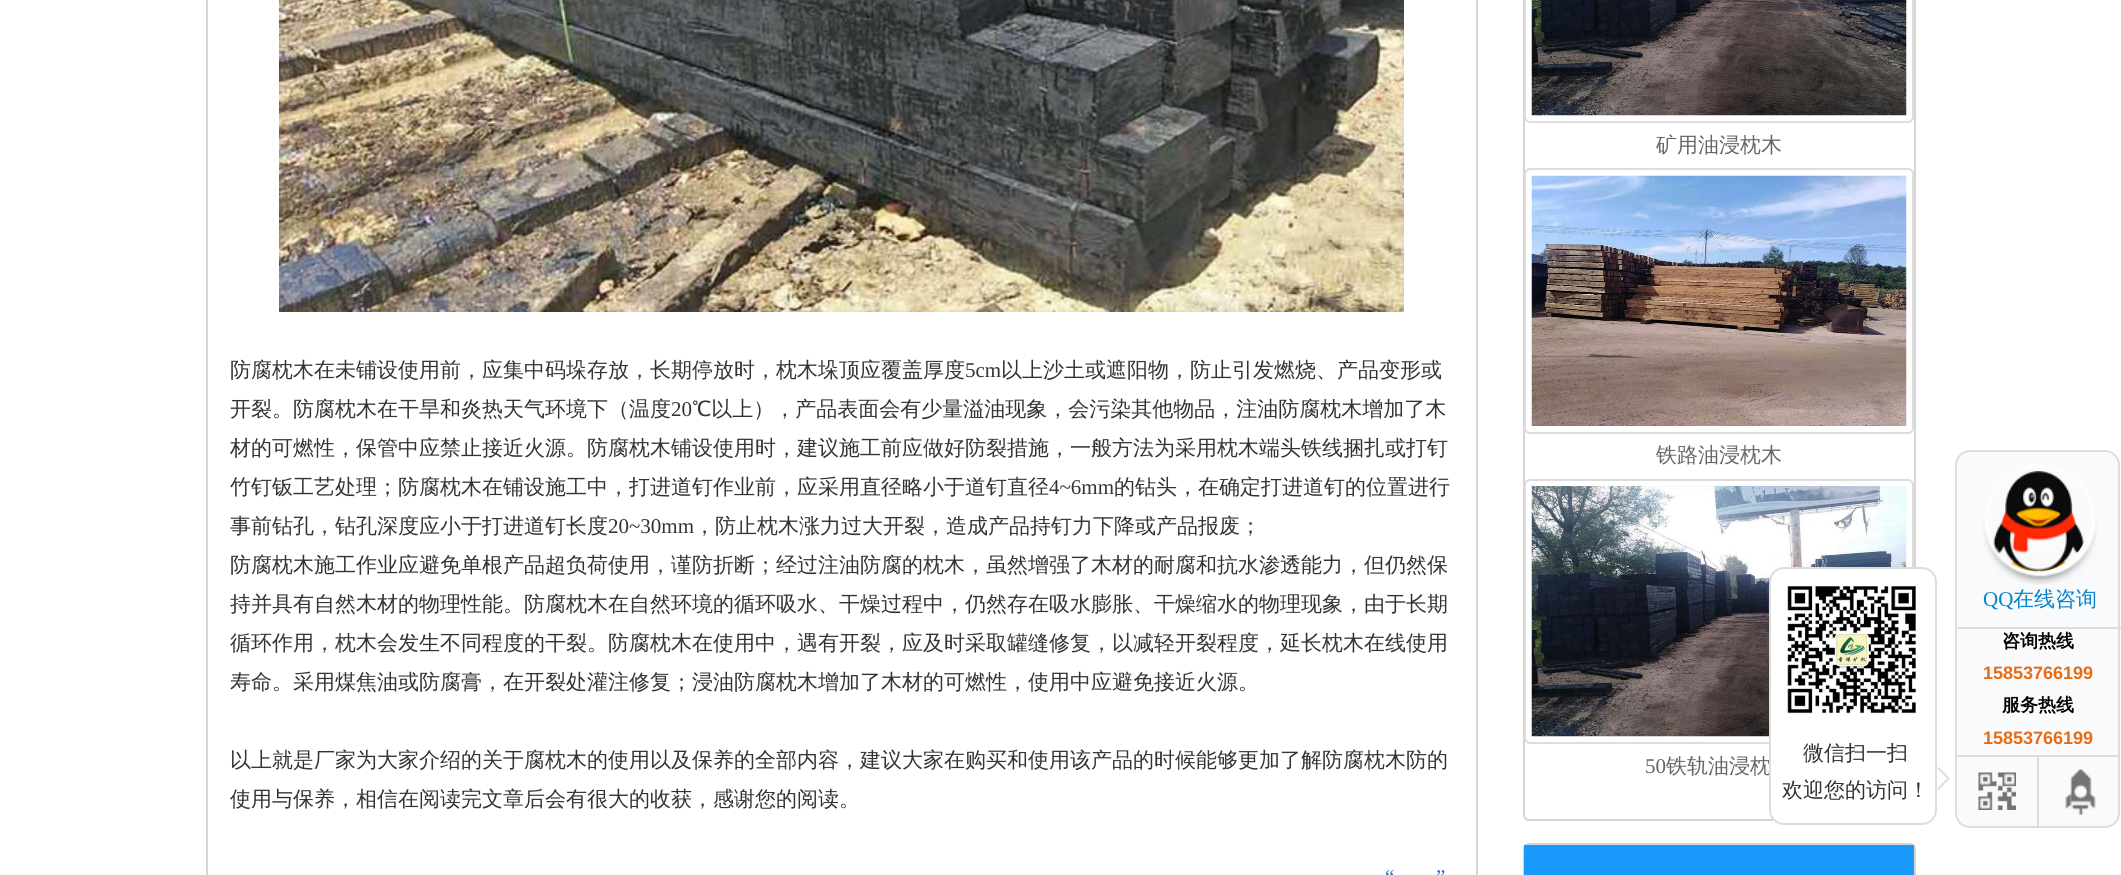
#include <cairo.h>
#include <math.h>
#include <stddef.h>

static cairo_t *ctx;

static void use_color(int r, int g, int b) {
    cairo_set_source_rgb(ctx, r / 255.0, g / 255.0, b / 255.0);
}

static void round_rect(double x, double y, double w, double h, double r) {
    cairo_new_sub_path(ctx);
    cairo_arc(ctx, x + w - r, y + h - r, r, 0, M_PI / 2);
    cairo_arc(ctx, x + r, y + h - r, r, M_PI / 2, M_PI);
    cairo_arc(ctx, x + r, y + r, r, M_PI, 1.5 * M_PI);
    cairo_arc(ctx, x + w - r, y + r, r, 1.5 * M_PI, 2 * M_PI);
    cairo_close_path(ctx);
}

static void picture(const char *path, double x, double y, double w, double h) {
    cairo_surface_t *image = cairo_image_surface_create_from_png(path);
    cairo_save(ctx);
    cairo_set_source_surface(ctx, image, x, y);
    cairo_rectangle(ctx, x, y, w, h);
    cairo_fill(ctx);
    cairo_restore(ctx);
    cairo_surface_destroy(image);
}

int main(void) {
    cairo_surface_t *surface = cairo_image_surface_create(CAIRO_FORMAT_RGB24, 2121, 875);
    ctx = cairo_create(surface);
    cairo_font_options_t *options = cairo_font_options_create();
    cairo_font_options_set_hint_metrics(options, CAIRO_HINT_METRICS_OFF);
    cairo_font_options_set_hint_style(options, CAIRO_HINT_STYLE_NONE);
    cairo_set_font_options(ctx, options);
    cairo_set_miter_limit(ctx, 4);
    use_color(255, 255, 255);
    cairo_paint(ctx);
    cairo_rectangle(ctx, 207, -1, 1270, 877);
    use_color(213, 213, 213);
    cairo_stroke(ctx);
    picture("img1.png", 279, 0, 1125, 312);
    cairo_select_font_face(ctx, "WenQuanYi Zen Hei Medium", CAIRO_FONT_SLANT_NORMAL, CAIRO_FONT_WEIGHT_NORMAL);
    cairo_set_font_size(ctx, 21);
    use_color(51, 51, 51);
    cairo_move_to(ctx, 230, 377);
    cairo_show_text(ctx, "防腐枕木在未铺设使用前，应集中码垛存放，长期停放时，枕木垛顶应覆盖厚度");
    cairo_select_font_face(ctx, "Liberation Serif", CAIRO_FONT_SLANT_NORMAL, CAIRO_FONT_WEIGHT_NORMAL);
    cairo_move_to(ctx, 965, 377);
    cairo_show_text(ctx, "5cm");
    cairo_select_font_face(ctx, "WenQuanYi Zen Hei Medium", CAIRO_FONT_SLANT_NORMAL, CAIRO_FONT_WEIGHT_NORMAL);
    cairo_move_to(ctx, 1001, 377);
    cairo_show_text(ctx, "以上沙土或遮阳物，防止引发燃烧、产品变形或");
    cairo_move_to(ctx, 230, 416);
    cairo_show_text(ctx, "开裂。防腐枕木在干旱和炎热天气环境下（温度");
    cairo_select_font_face(ctx, "Liberation Serif", CAIRO_FONT_SLANT_NORMAL, CAIRO_FONT_WEIGHT_NORMAL);
    cairo_move_to(ctx, 671, 416);
    cairo_show_text(ctx, "20");
    cairo_select_font_face(ctx, "WenQuanYi Zen Hei Medium", CAIRO_FONT_SLANT_NORMAL, CAIRO_FONT_WEIGHT_NORMAL);
    cairo_move_to(ctx, 692, 416);
    cairo_show_text(ctx, "℃以上），产品表面会有少量溢油现象，会污染其他物品，注油防腐枕木增加了木");
    cairo_move_to(ctx, 230, 455);
    cairo_show_text(ctx, "材的可燃性，保管中应禁止接近火源。防腐枕木铺设使用时，建议施工前应做好防裂措施，一般方法为采用枕木端头铁线捆扎或打钉");
    cairo_move_to(ctx, 230, 494);
    cairo_show_text(ctx, "竹钉钣工艺处理；防腐枕木在铺设施工中，打进道钉作业前，应采用直径略小于道钉直径");
    cairo_select_font_face(ctx, "Liberation Serif", CAIRO_FONT_SLANT_NORMAL, CAIRO_FONT_WEIGHT_NORMAL);
    cairo_move_to(ctx, 1049, 494);
    cairo_show_text(ctx, "4~6mm");
    cairo_select_font_face(ctx, "WenQuanYi Zen Hei Medium", CAIRO_FONT_SLANT_NORMAL, CAIRO_FONT_WEIGHT_NORMAL);
    cairo_move_to(ctx, 1114, 494);
    cairo_show_text(ctx, "的钻头，在确定打进道钉的位置进行");
    cairo_move_to(ctx, 230, 533);
    cairo_show_text(ctx, "事前钻孔，钻孔深度应小于打进道钉长度");
    cairo_select_font_face(ctx, "Liberation Serif", CAIRO_FONT_SLANT_NORMAL, CAIRO_FONT_WEIGHT_NORMAL);
    cairo_move_to(ctx, 608, 533);
    cairo_show_text(ctx, "20~30mm");
    cairo_select_font_face(ctx, "WenQuanYi Zen Hei Medium", CAIRO_FONT_SLANT_NORMAL, CAIRO_FONT_WEIGHT_NORMAL);
    cairo_move_to(ctx, 694, 533);
    cairo_show_text(ctx, "，防止枕木涨力过大开裂，造成产品持钉力下降或产品报废；");
    cairo_move_to(ctx, 230, 572);
    cairo_show_text(ctx, "防腐枕木施工作业应避免单根产品超负荷使用，谨防折断；经过注油防腐的枕木，虽然增强了木材的耐腐和抗水渗透能力，但仍然保");
    cairo_move_to(ctx, 230, 611);
    cairo_show_text(ctx, "持并具有自然木材的物理性能。防腐枕木在自然环境的循环吸水、干燥过程中，仍然存在吸水膨胀、干燥缩水的物理现象，由于长期");
    cairo_move_to(ctx, 230, 650);
    cairo_show_text(ctx, "循环作用，枕木会发生不同程度的干裂。防腐枕木在使用中，遇有开裂，应及时采取罐缝修复，以减轻开裂程度，延长枕木在线使用");
    cairo_move_to(ctx, 230, 689);
    cairo_show_text(ctx, "寿命。采用煤焦油或防腐膏，在开裂处灌注修复；浸油防腐枕木增加了木材的可燃性，使用中应避免接近火源。");
    cairo_move_to(ctx, 230, 767);
    cairo_show_text(ctx, "以上就是厂家为大家介绍的关于腐枕木的使用以及保养的全部内容，建议大家在购买和使用该产品的时候能够更加了解防腐枕木防的");
    cairo_move_to(ctx, 230, 806);
    cairo_show_text(ctx, "使用与保养，相信在阅读完文章后会有很大的收获，感谢您的阅读。");
    cairo_select_font_face(ctx, "Liberation Serif", CAIRO_FONT_SLANT_NORMAL, CAIRO_FONT_WEIGHT_NORMAL);
    use_color(56, 112, 186);
    cairo_move_to(ctx, 1385, 884);
    cairo_show_text(ctx, "“");
    cairo_move_to(ctx, 1436, 884);
    cairo_show_text(ctx, "”");
    round_rect(1524, -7, 391, 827, 5);
    use_color(213, 213, 213);
    cairo_stroke(ctx);
    use_color(255, 255, 255);
    round_rect(1525, -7, 388, 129, 5);
    cairo_fill_preserve(ctx);
    use_color(221, 221, 221);
    cairo_stroke(ctx);
    picture("img2.png", 1531, 0, 376, 116);
    cairo_select_font_face(ctx, "WenQuanYi Zen Hei Medium", CAIRO_FONT_SLANT_NORMAL, CAIRO_FONT_WEIGHT_NORMAL);
    use_color(102, 102, 102);
    cairo_move_to(ctx, 1656, 152);
    cairo_show_text(ctx, "矿用油浸枕木");
    use_color(255, 255, 255);
    round_rect(1525, 169, 388, 264, 5);
    cairo_fill_preserve(ctx);
    use_color(221, 221, 221);
    cairo_stroke(ctx);
    picture("img3.png", 1531, 175, 376, 251);
    use_color(102, 102, 102);
    cairo_move_to(ctx, 1656, 462);
    cairo_show_text(ctx, "铁路油浸枕木");
    use_color(255, 255, 255);
    round_rect(1525, 480, 388, 263, 5);
    cairo_fill_preserve(ctx);
    use_color(221, 221, 221);
    cairo_stroke(ctx);
    picture("img4.png", 1531, 486, 376, 251);
    cairo_select_font_face(ctx, "Liberation Serif", CAIRO_FONT_SLANT_NORMAL, CAIRO_FONT_WEIGHT_NORMAL);
    use_color(102, 102, 102);
    cairo_move_to(ctx, 1645, 773);
    cairo_show_text(ctx, "50");
    cairo_select_font_face(ctx, "WenQuanYi Zen Hei Medium", CAIRO_FONT_SLANT_NORMAL, CAIRO_FONT_WEIGHT_NORMAL);
    cairo_move_to(ctx, 1666, 773);
    cairo_show_text(ctx, "铁轨油浸枕");
    round_rect(1524, 844, 391, 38, 5);
    use_color(213, 213, 213);
    cairo_stroke(ctx);
    use_color(25, 153, 250);
    cairo_rectangle(ctx, 1524, 845, 390, 30);
    cairo_fill(ctx);
    use_color(249, 250, 251);
    round_rect(1956, 451, 163, 376, 14);
    cairo_fill_preserve(ctx);
    use_color(221, 221, 221);
    cairo_stroke(ctx);
    picture("img6.png", 1993, 471, 91, 101);
    picture("img5.png", 1983, 465, 114, 120);
    cairo_rectangle(ctx, 1958, 627, 163, 2);
    cairo_fill(ctx);
    cairo_select_font_face(ctx, "Liberation Serif", CAIRO_FONT_SLANT_NORMAL, CAIRO_FONT_WEIGHT_NORMAL);
    use_color(4, 132, 205);
    cairo_move_to(ctx, 1983, 606);
    cairo_show_text(ctx, "QQ");
    cairo_select_font_face(ctx, "WenQuanYi Zen Hei Medium", CAIRO_FONT_SLANT_NORMAL, CAIRO_FONT_WEIGHT_NORMAL);
    cairo_move_to(ctx, 2013, 606);
    cairo_show_text(ctx, "在线咨询");
    use_color(221, 221, 221);
    cairo_rectangle(ctx, 1956, 755, 164, 2);
    cairo_fill(ctx);
    cairo_select_font_face(ctx, "WenQuanYi Zen Hei", CAIRO_FONT_SLANT_NORMAL, CAIRO_FONT_WEIGHT_BOLD);
    cairo_set_font_size(ctx, 18);
    use_color(0, 0, 0);
    cairo_move_to(ctx, 2002, 647);
    cairo_show_text(ctx, "咨询热线");
    cairo_select_font_face(ctx, "Liberation Sans", CAIRO_FONT_SLANT_NORMAL, CAIRO_FONT_WEIGHT_BOLD);
    use_color(230, 109, 21);
    cairo_move_to(ctx, 1983, 679);
    cairo_show_text(ctx, "15853766199");
    cairo_select_font_face(ctx, "WenQuanYi Zen Hei", CAIRO_FONT_SLANT_NORMAL, CAIRO_FONT_WEIGHT_BOLD);
    use_color(0, 0, 0);
    cairo_move_to(ctx, 2002, 711);
    cairo_show_text(ctx, "服务热线");
    cairo_select_font_face(ctx, "Liberation Sans", CAIRO_FONT_SLANT_NORMAL, CAIRO_FONT_WEIGHT_BOLD);
    use_color(230, 109, 21);
    cairo_move_to(ctx, 1983, 744);
    cairo_show_text(ctx, "15853766199");
    picture("img7.png", 1978, 772, 38, 38);
    use_color(221, 221, 221);
    cairo_rectangle(ctx, 2037, 756, 2, 71);
    cairo_fill(ctx);
    use_color(255, 255, 255);
    round_rect(1770, 568, 166, 256, 14);
    cairo_fill_preserve(ctx);
    use_color(221, 221, 221);
    cairo_stroke(ctx);
    picture("img8.png", 1787, 586, 129, 128);
    cairo_select_font_face(ctx, "WenQuanYi Zen Hei Medium", CAIRO_FONT_SLANT_NORMAL, CAIRO_FONT_WEIGHT_NORMAL);
    cairo_set_font_size(ctx, 21);
    use_color(51, 51, 51);
    cairo_move_to(ctx, 1803, 760);
    cairo_show_text(ctx, "微信扫一扫");
    cairo_move_to(ctx, 1782, 797);
    cairo_show_text(ctx, "欢迎您的访问！");
    use_color(221, 221, 221);
    cairo_new_path(ctx);
    cairo_move_to(ctx, 1938, 790.5);
    cairo_line_to(ctx, 1938, 766.5);
    cairo_line_to(ctx, 1950, 778.5);
    cairo_close_path(ctx);
    cairo_fill(ctx);
    use_color(255, 255, 255);
    cairo_new_path(ctx);
    cairo_move_to(ctx, 1938, 787.5);
    cairo_line_to(ctx, 1938, 769.5);
    cairo_line_to(ctx, 1947, 778.5);
    cairo_close_path(ctx);
    cairo_fill(ctx);
    picture("img9.png", 2065, 769, 31, 46);
    cairo_surface_write_to_png(surface, "result.png");
    cairo_font_options_destroy(options);
    cairo_destroy(ctx);
    cairo_surface_destroy(surface);
    return 0;
}
